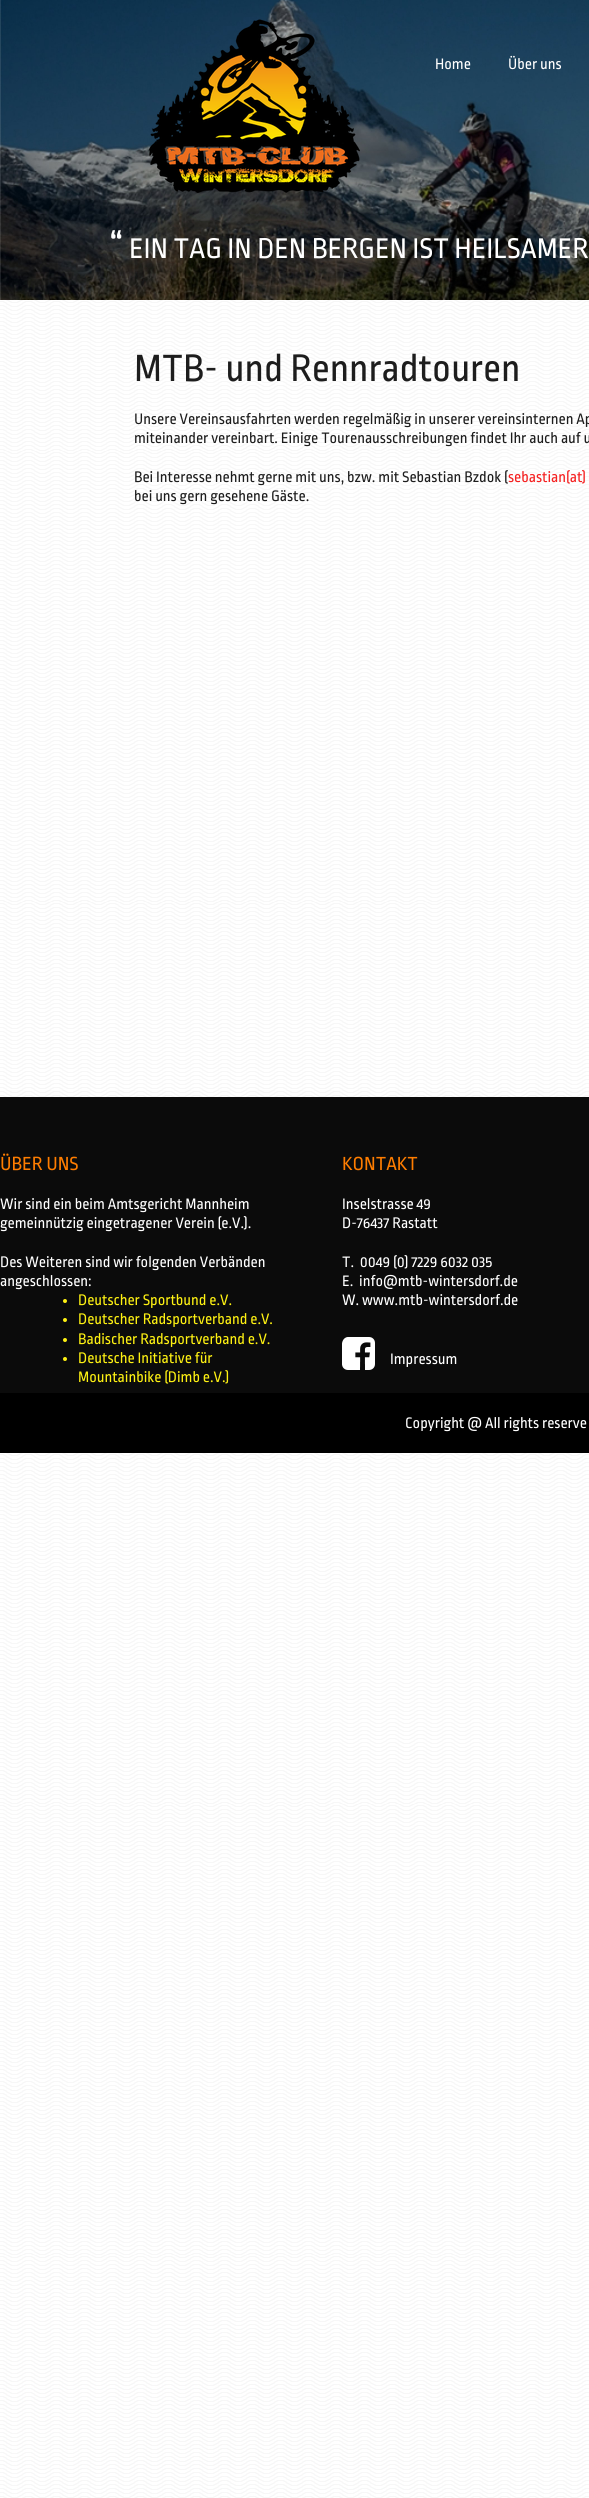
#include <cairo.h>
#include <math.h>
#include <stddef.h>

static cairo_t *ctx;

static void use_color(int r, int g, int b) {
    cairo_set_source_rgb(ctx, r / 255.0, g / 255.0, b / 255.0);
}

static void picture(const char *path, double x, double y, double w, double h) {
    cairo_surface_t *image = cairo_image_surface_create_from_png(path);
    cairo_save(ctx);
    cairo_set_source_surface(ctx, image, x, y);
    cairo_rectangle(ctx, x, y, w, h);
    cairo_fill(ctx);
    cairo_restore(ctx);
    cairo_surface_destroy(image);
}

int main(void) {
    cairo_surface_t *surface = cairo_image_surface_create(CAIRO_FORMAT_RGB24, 589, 2498);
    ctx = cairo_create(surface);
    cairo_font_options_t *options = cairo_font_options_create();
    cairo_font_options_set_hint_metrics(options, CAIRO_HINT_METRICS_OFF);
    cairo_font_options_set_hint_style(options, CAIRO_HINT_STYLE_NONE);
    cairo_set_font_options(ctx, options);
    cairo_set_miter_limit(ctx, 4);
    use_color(255, 255, 255);
    cairo_paint(ctx);
    picture("img1.png", 0, 300, 589, 2198);
    picture("img2.png", 0, 0, 589, 300);
    picture("img3.png", 149, 19, 211, 174);
    cairo_select_font_face(ctx, "Ropa Sans", CAIRO_FONT_SLANT_NORMAL, CAIRO_FONT_WEIGHT_NORMAL);
    cairo_set_font_size(ctx, 16);
    use_color(255, 255, 255);
    cairo_move_to(ctx, 435, 69);
    cairo_show_text(ctx, "Home");
    cairo_move_to(ctx, 508, 69);
    cairo_show_text(ctx, "Über uns");
    cairo_set_font_size(ctx, 40);
    cairo_move_to(ctx, 109, 258);
    cairo_show_text(ctx, "“");
    cairo_set_font_size(ctx, 30);
    cairo_move_to(ctx, 129, 258);
    cairo_show_text(ctx, "EIN TAG IN DEN BERGEN IST HEILSAMER");
    cairo_set_font_size(ctx, 40);
    use_color(29, 29, 29);
    cairo_move_to(ctx, 134, 381);
    cairo_show_text(ctx, "MTB- und Rennradtouren");
    cairo_set_font_size(ctx, 16);
    cairo_move_to(ctx, 134, 424);
    cairo_show_text(ctx, "Unsere Vereinsausfahrten werden regelmäßig in unserer vereinsinternen Ap");
    cairo_move_to(ctx, 134, 443);
    cairo_show_text(ctx, "miteinander vereinbart. Einige Tourenausschreibungen findet Ihr auch auf u");
    cairo_move_to(ctx, 134, 482);
    cairo_show_text(ctx, "Bei Interesse nehmt gerne mit uns, bzw. mit Sebastian Bzdok (");
    use_color(245, 32, 32);
    cairo_move_to(ctx, 508, 482);
    cairo_show_text(ctx, "sebastian(at)");
    use_color(29, 29, 29);
    cairo_move_to(ctx, 134, 501);
    cairo_show_text(ctx, "bei uns gern gesehene Gäste.");
    use_color(11, 11, 11);
    cairo_rectangle(ctx, 0, 1097, 589, 296);
    cairo_fill(ctx);
    cairo_set_font_size(ctx, 20);
    use_color(255, 125, 0);
    cairo_move_to(ctx, 0, 1170);
    cairo_show_text(ctx, "ÜBER UNS");
    cairo_set_font_size(ctx, 16);
    use_color(255, 255, 255);
    cairo_move_to(ctx, 0, 1209);
    cairo_show_text(ctx, "Wir sind ein beim Amtsgericht Mannheim");
    cairo_move_to(ctx, 0, 1228);
    cairo_show_text(ctx, "gemeinnützig eingetragener Verein (e.V.).");
    cairo_move_to(ctx, 0, 1267);
    cairo_show_text(ctx, "Des Weiteren sind wir folgenden Verbänden");
    cairo_move_to(ctx, 0, 1286);
    cairo_show_text(ctx, "angeschlossen:");
    use_color(254, 241, 18);
    cairo_new_path(ctx);
    cairo_arc(ctx, 65, 1301, 2, 0, 2 * M_PI);
    cairo_fill(ctx);
    cairo_move_to(ctx, 78, 1305);
    cairo_show_text(ctx, "Deutscher Sportbund e.V.");
    cairo_new_path(ctx);
    cairo_arc(ctx, 65, 1320, 2, 0, 2 * M_PI);
    cairo_fill(ctx);
    cairo_move_to(ctx, 78, 1324);
    cairo_show_text(ctx, "Deutscher Radsportverband e.V.");
    cairo_new_path(ctx);
    cairo_arc(ctx, 65, 1340, 2, 0, 2 * M_PI);
    cairo_fill(ctx);
    cairo_move_to(ctx, 78, 1344);
    cairo_show_text(ctx, "Badischer Radsportverband e.V.");
    cairo_new_path(ctx);
    cairo_arc(ctx, 65, 1359, 2, 0, 2 * M_PI);
    cairo_fill(ctx);
    cairo_move_to(ctx, 78, 1363);
    cairo_show_text(ctx, "Deutsche Initiative für");
    cairo_move_to(ctx, 78, 1382);
    cairo_show_text(ctx, "Mountainbike (Dimb e.V.)");
    cairo_set_font_size(ctx, 20);
    use_color(255, 125, 0);
    cairo_move_to(ctx, 342, 1170);
    cairo_show_text(ctx, "KONTAKT");
    cairo_set_font_size(ctx, 16);
    use_color(255, 255, 255);
    cairo_move_to(ctx, 342, 1209);
    cairo_show_text(ctx, "Inselstrasse 49");
    cairo_move_to(ctx, 342, 1228);
    cairo_show_text(ctx, "D-76437 Rastatt");
    cairo_move_to(ctx, 342, 1267);
    cairo_show_text(ctx, "T.  0049 (0) 7229 6032 035");
    cairo_move_to(ctx, 342, 1286);
    cairo_show_text(ctx, "E.  info@mtb-wintersdorf.de");
    cairo_move_to(ctx, 342, 1305);
    cairo_show_text(ctx, "W. www.mtb-wintersdorf.de");
    picture("img4.png", 342, 1337, 33, 33);
    cairo_move_to(ctx, 390, 1364);
    cairo_show_text(ctx, "Impressum");
    use_color(0, 0, 0);
    cairo_rectangle(ctx, 0, 1393, 589, 60);
    cairo_fill(ctx);
    use_color(255, 255, 255);
    cairo_move_to(ctx, 405, 1428);
    cairo_show_text(ctx, "Copyright @ All rights reserve");
    cairo_surface_write_to_png(surface, "result.png");
    cairo_font_options_destroy(options);
    cairo_destroy(ctx);
    cairo_surface_destroy(surface);
    return 0;
}
